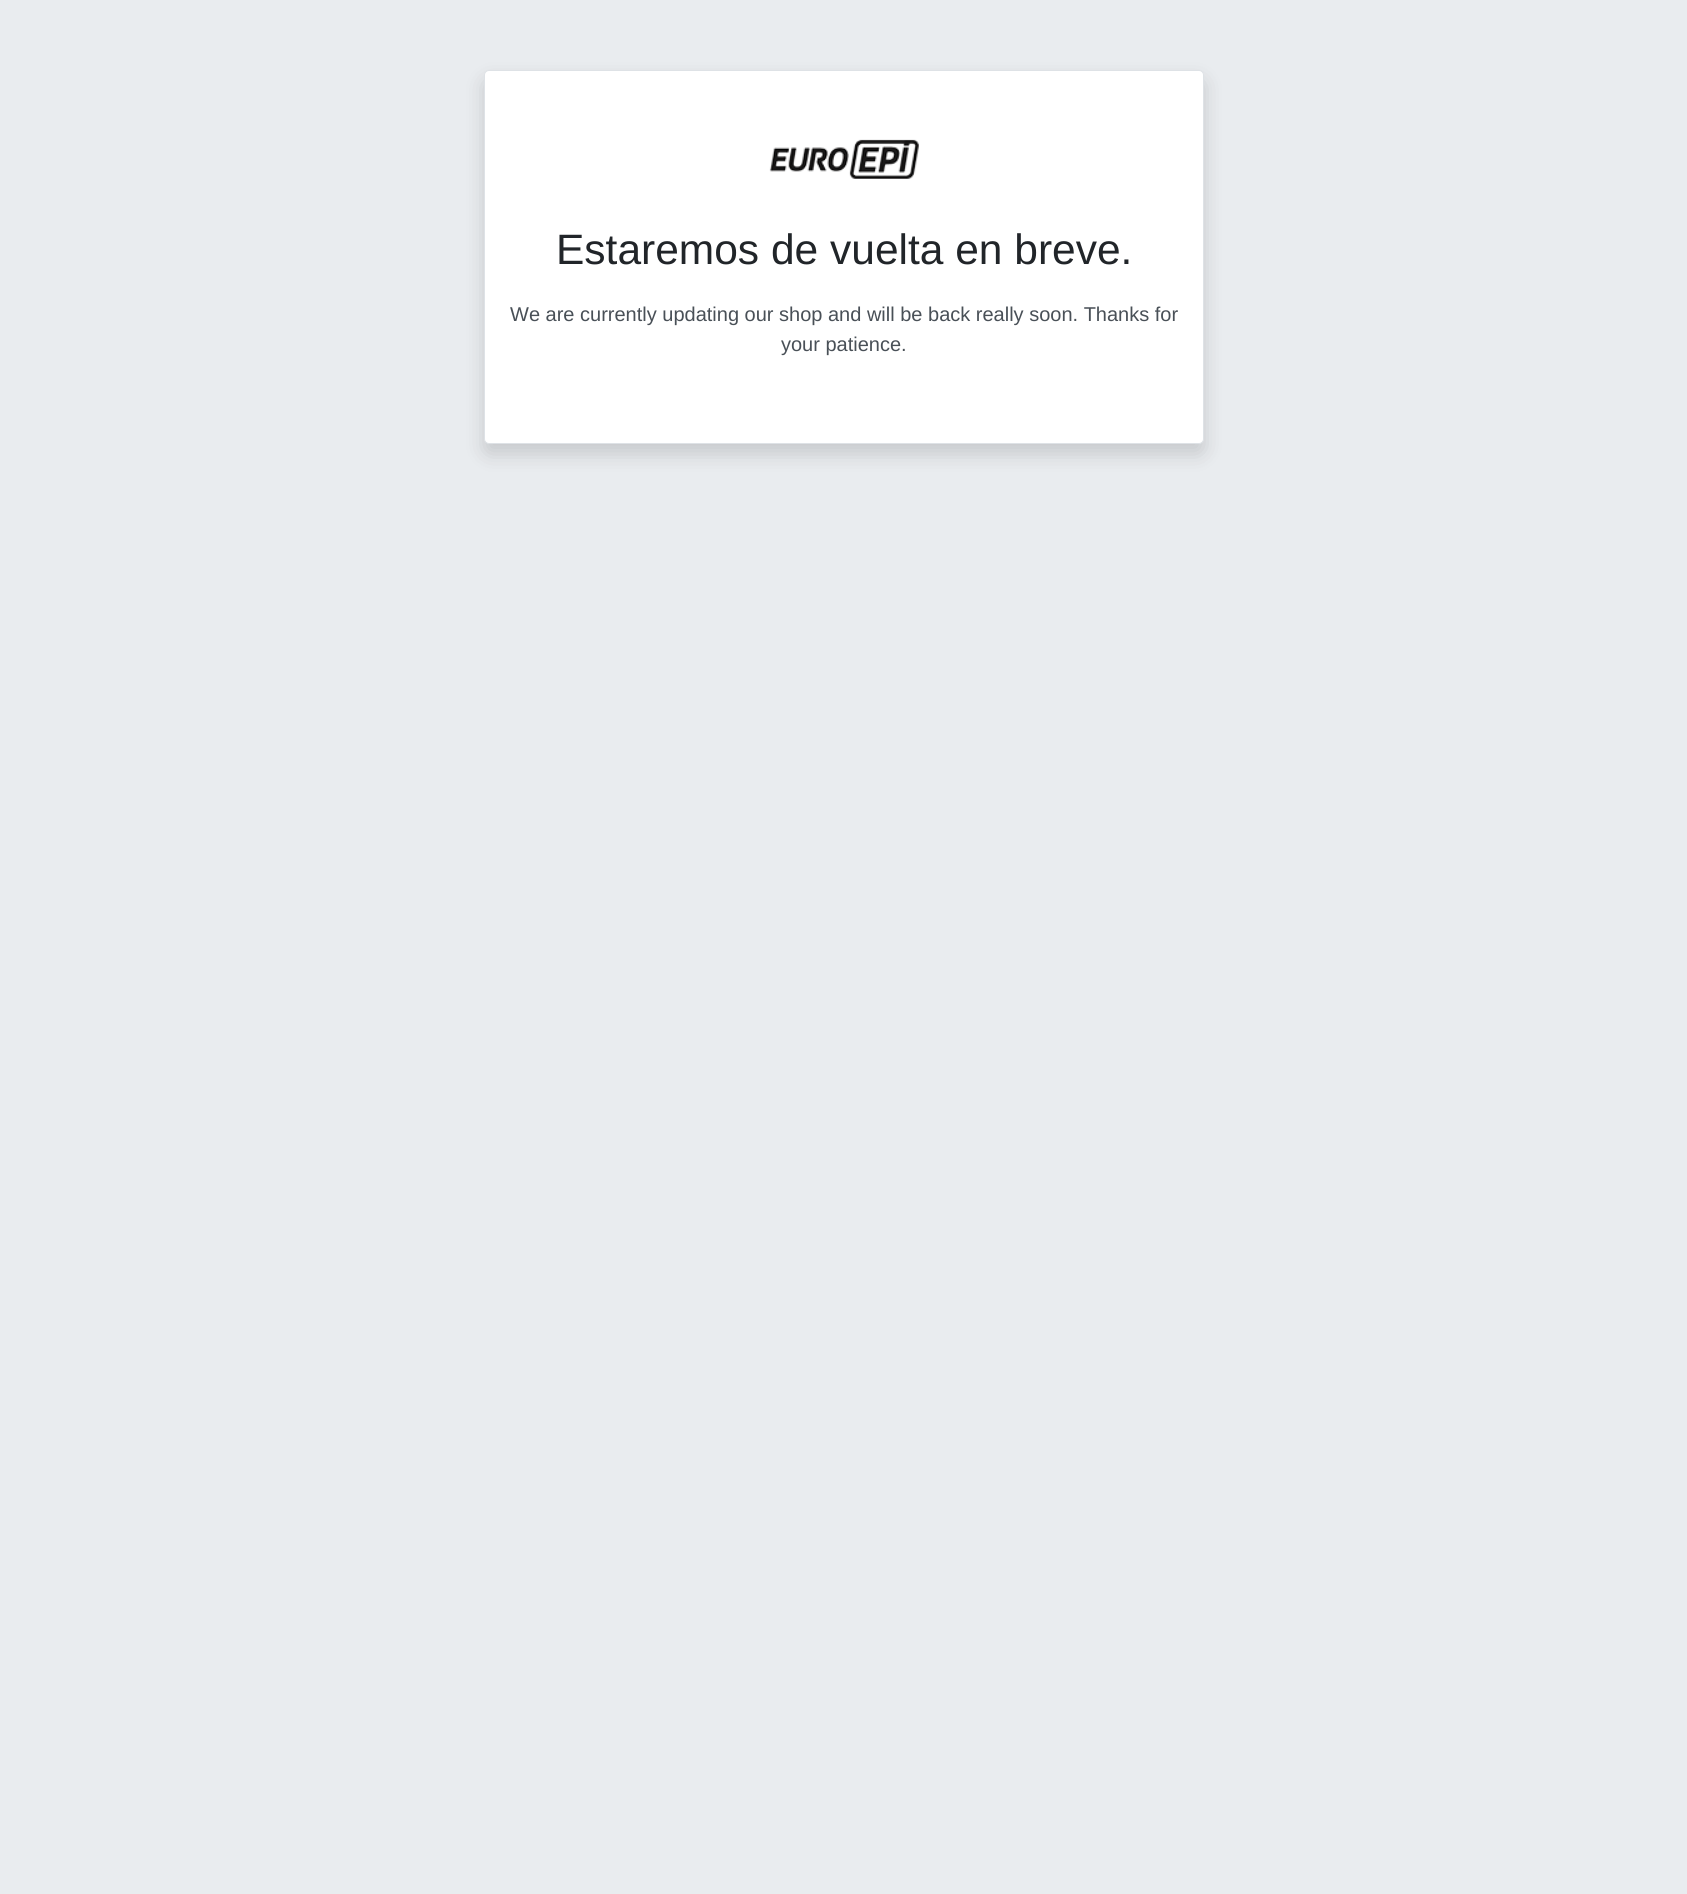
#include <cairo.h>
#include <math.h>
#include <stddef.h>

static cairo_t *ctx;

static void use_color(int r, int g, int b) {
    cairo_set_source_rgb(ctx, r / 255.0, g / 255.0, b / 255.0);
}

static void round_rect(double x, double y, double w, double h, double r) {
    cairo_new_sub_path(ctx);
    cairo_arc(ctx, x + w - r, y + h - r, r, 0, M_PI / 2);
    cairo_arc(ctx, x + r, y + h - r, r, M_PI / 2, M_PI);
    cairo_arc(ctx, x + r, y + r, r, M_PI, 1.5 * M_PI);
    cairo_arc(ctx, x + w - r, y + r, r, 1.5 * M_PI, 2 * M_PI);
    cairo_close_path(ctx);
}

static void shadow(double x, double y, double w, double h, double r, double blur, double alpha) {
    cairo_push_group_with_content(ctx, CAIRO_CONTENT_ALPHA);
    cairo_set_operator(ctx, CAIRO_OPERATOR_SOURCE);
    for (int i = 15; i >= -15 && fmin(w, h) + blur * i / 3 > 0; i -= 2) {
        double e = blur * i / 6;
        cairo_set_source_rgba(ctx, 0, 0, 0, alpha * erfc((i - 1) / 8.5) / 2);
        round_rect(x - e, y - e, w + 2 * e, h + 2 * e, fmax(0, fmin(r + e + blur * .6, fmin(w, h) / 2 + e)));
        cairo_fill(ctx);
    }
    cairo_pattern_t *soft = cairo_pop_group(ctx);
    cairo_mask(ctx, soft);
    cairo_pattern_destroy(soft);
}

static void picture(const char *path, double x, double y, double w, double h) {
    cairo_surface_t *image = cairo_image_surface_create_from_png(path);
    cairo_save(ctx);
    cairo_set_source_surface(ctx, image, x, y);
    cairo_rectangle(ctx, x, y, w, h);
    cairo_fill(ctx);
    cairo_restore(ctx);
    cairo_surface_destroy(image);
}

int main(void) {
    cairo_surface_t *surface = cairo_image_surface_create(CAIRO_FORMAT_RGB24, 1687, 1894);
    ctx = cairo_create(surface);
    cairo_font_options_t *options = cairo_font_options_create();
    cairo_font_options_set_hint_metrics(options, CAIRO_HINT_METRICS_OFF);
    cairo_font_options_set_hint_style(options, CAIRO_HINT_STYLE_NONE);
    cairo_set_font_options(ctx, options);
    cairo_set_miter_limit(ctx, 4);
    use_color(233, 236, 239);
    cairo_paint(ctx);
    use_color(0, 0, 0);
    shadow(484, 80, 720, 374, 5, 10, 0.15);
    use_color(255, 255, 255);
    round_rect(484.5, 70.5, 719, 373, 4.5);
    cairo_fill_preserve(ctx);
    use_color(222, 226, 230);
    cairo_set_line_width(ctx, 1);
    cairo_stroke(ctx);
    picture("img1.png", 769, 139, 150, 40);
    cairo_select_font_face(ctx, "Liberation Sans", CAIRO_FONT_SLANT_NORMAL, CAIRO_FONT_WEIGHT_NORMAL);
    cairo_set_font_size(ctx, 42.5);
    use_color(33, 37, 41);
    cairo_move_to(ctx, 556, 264);
    cairo_show_text(ctx, "Estaremos de vuelta en breve.");
    cairo_set_font_size(ctx, 20);
    use_color(73, 80, 87);
    cairo_move_to(ctx, 510, 321);
    cairo_show_text(ctx, "We are currently updating our shop and will be back really soon. Thanks for");
    cairo_move_to(ctx, 781, 351);
    cairo_show_text(ctx, "your patience.");
    cairo_surface_write_to_png(surface, "result.png");
    cairo_font_options_destroy(options);
    cairo_destroy(ctx);
    cairo_surface_destroy(surface);
    return 0;
}
